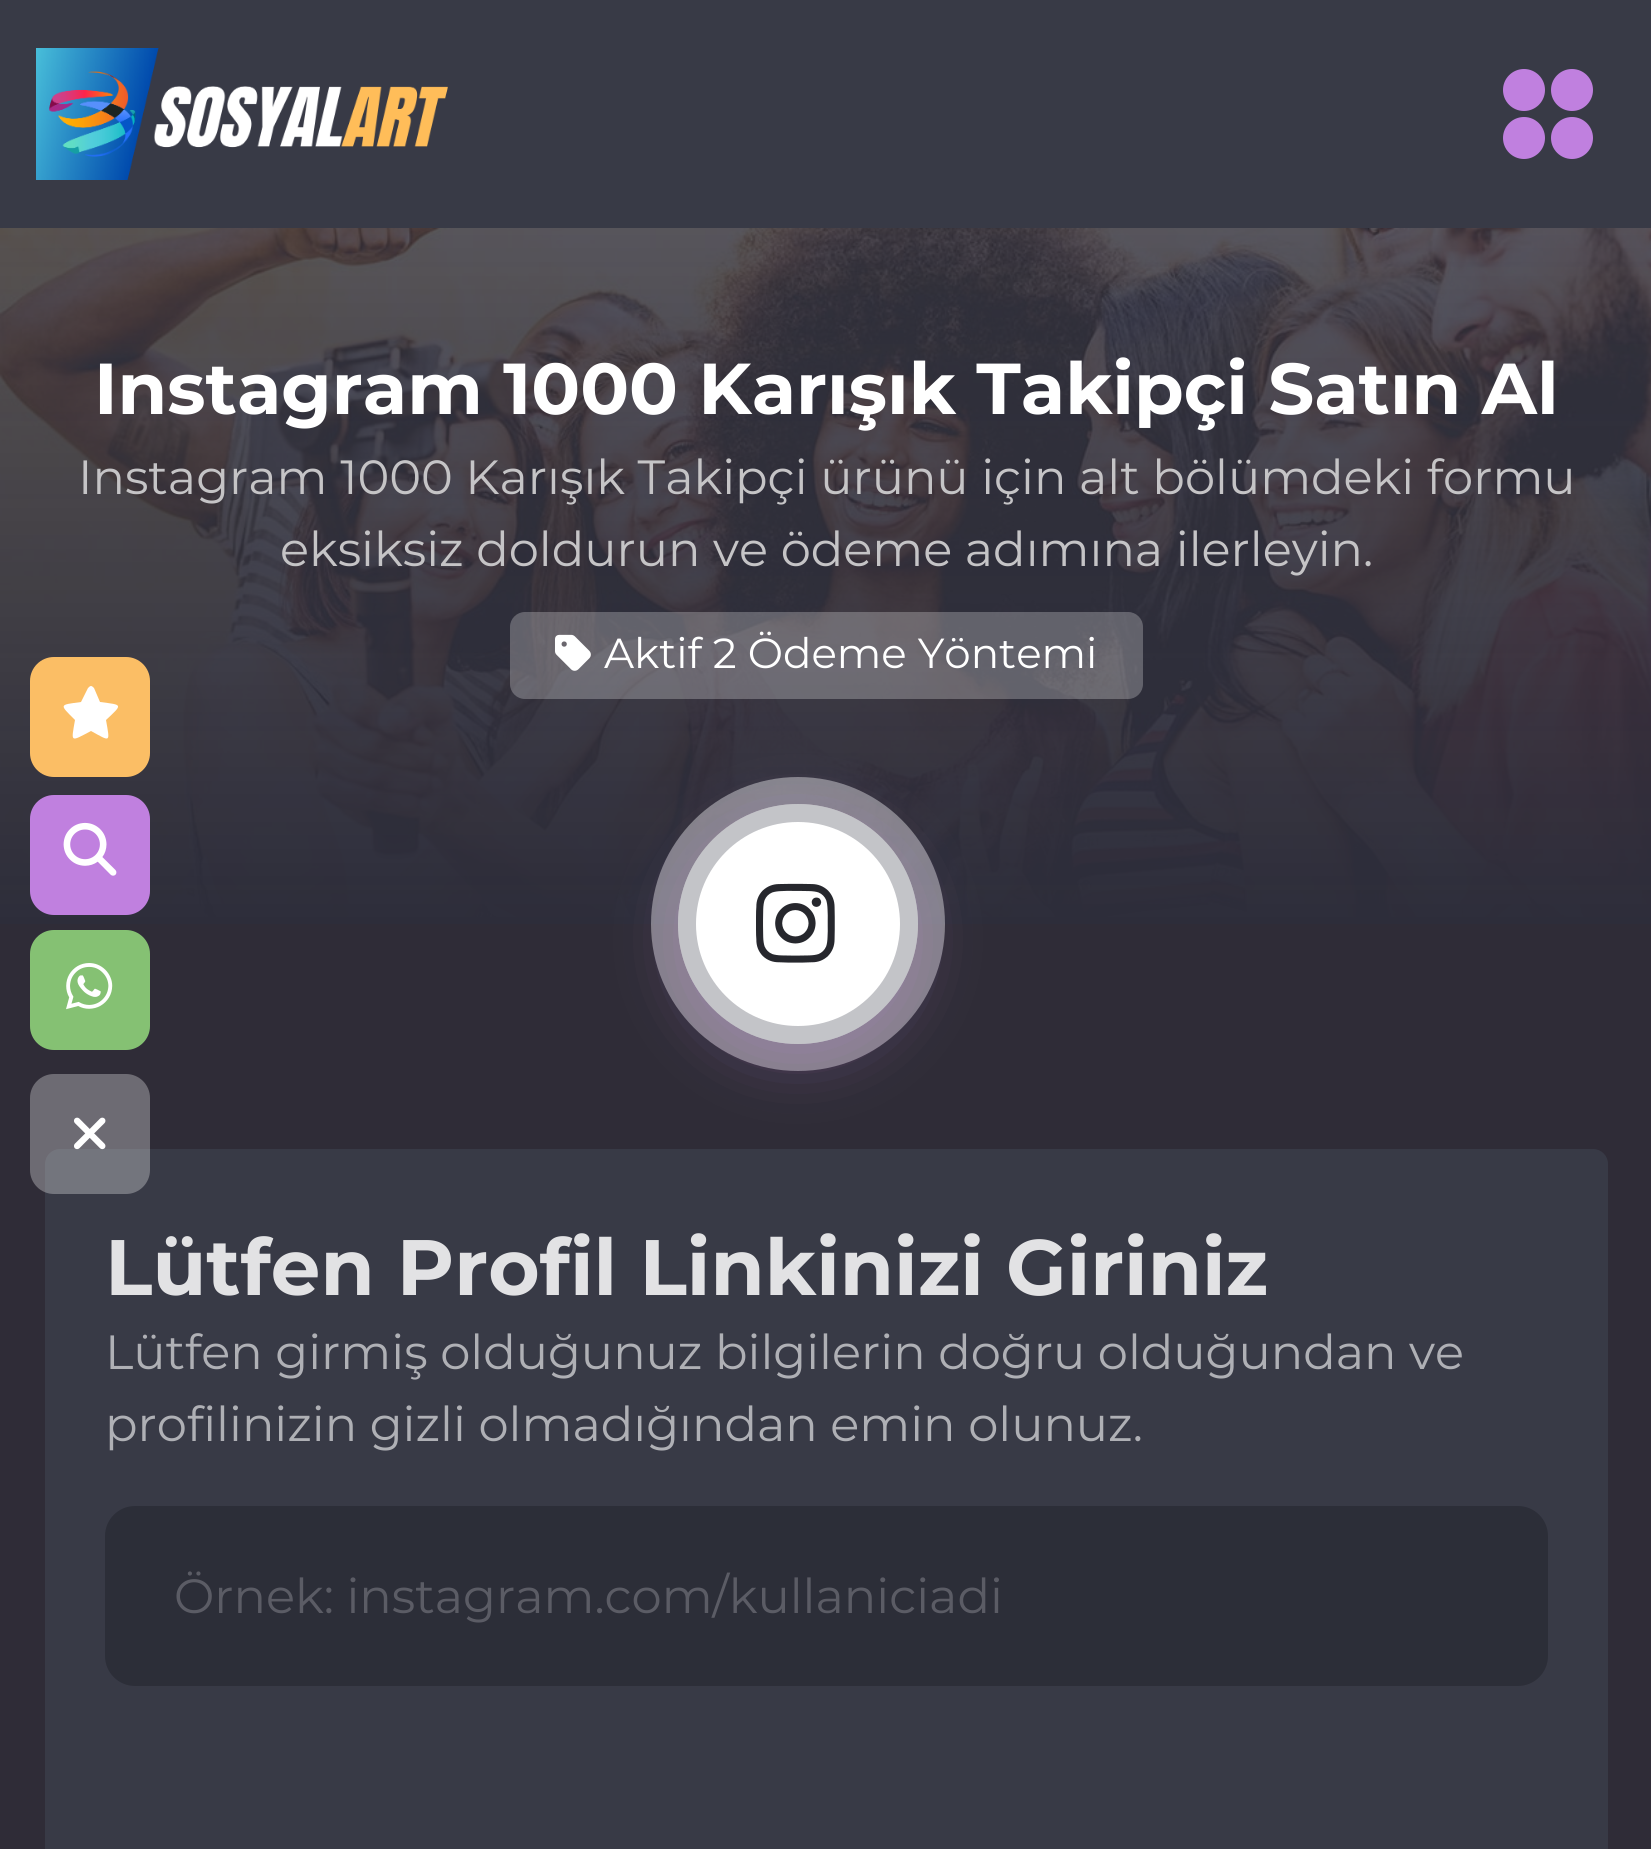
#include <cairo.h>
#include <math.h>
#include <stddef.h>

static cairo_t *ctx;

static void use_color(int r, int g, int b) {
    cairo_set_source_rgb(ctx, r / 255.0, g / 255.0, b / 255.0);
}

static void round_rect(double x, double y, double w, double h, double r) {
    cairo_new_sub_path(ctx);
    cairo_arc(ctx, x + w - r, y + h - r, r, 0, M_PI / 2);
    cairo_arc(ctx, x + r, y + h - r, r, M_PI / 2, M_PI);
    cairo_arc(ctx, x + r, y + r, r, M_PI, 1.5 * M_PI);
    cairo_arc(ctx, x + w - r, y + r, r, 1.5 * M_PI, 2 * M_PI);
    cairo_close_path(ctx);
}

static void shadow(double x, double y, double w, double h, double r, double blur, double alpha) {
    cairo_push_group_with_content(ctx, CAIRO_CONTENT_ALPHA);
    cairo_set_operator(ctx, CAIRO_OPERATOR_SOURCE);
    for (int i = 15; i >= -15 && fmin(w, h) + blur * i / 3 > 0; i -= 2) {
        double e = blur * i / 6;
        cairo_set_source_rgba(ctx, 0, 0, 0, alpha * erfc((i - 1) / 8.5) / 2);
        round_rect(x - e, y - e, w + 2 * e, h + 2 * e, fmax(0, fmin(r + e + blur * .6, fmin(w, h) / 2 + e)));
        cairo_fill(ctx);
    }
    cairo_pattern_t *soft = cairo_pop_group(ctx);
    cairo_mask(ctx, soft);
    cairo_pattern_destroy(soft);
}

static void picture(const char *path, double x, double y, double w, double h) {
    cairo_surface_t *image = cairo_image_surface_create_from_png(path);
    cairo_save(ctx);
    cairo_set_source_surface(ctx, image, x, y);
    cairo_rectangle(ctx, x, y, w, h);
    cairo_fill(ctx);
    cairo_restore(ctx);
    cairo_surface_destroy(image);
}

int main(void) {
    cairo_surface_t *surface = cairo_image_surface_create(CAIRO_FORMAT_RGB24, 1651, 1849);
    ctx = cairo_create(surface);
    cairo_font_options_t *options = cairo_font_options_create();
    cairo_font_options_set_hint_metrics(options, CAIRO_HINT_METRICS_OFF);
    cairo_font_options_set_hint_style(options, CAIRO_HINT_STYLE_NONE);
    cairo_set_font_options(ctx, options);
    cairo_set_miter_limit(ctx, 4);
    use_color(255, 255, 255);
    cairo_paint(ctx);
    use_color(47, 44, 55);
    cairo_new_path(ctx);
    cairo_move_to(ctx, -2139, 0);
    cairo_line_to(ctx, -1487, 1466);
    cairo_curve_to(ctx, -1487, 1466, -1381, 1691, -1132, 1746);
    cairo_curve_to(ctx, -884, 1800, 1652, 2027, 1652, 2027);
    cairo_line_to(ctx, 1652, 0);
    cairo_close_path(ctx);
    cairo_fill(ctx);
    use_color(56, 58, 70);
    cairo_rectangle(ctx, 0, 0, 1651, 228);
    cairo_fill(ctx);
    picture("img1.png", 36, 48, 412, 132);
    use_color(192, 128, 223);
    cairo_arc(ctx, 1524, 90, 21, 0, 2 * M_PI);
    cairo_fill(ctx);
    cairo_arc(ctx, 1572, 90, 21, 0, 2 * M_PI);
    cairo_fill(ctx);
    cairo_arc(ctx, 1524, 138, 21, 0, 2 * M_PI);
    cairo_fill(ctx);
    cairo_arc(ctx, 1572, 138, 21, 0, 2 * M_PI);
    cairo_fill(ctx);
    picture("img2.png", 0, 228, 1651, 696);
    cairo_select_font_face(ctx, "Montserrat", CAIRO_FONT_SLANT_NORMAL, CAIRO_FONT_WEIGHT_BOLD);
    cairo_set_font_size(ctx, 72);
    use_color(255, 255, 255);
    cairo_move_to(ctx, 94, 414);
    cairo_show_text(ctx, "Instagram 1000 Karışık Takipçi Satın Al");
    cairo_select_font_face(ctx, "Montserrat", CAIRO_FONT_SLANT_NORMAL, CAIRO_FONT_WEIGHT_NORMAL);
    cairo_set_font_size(ctx, 48);
    use_color(197, 196, 198);
    cairo_move_to(ctx, 78, 494);
    cairo_show_text(ctx, "Instagram 1000 Karışık Takipçi ürünü için alt bölümdeki formu");
    cairo_move_to(ctx, 280, 566);
    cairo_show_text(ctx, "eksiksiz doldurun ve ödeme adımına ilerleyin.");
    cairo_set_source_rgba(ctx, 1, 1, 1, 0.25);
    round_rect(510, 612, 633, 87, 15);
    cairo_fill(ctx);
    picture("img3.png", 555, 634, 36, 37);
    cairo_set_font_size(ctx, 42);
    use_color(255, 255, 255);
    cairo_move_to(ctx, 604, 668);
    cairo_show_text(ctx, "Aktif 2 Ödeme Yöntemi");
    cairo_set_source_rgba(ctx, 1, 1, 1, 0.4);
    cairo_new_path(ctx);
    cairo_arc(ctx, 798, 924, 147, 0, 2 * M_PI);
    cairo_fill(ctx);
    use_color(56, 58, 70);
    round_rect(45, 1149, 1563, 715, 15);
    cairo_fill(ctx);
    use_color(192, 128, 223);
    shadow(678, 819, 240, 240, 120, 30, 0.3);
    use_color(255, 255, 255);
    cairo_arc(ctx, 798, 924, 120, 0, 2 * M_PI);
    cairo_fill(ctx);
    cairo_arc(ctx, 798, 924, 111, 0, 2 * M_PI);
    cairo_set_source_rgba(ctx, 0.22, 0.227, 0.275, 0.3);
    cairo_set_line_width(ctx, 18);
    cairo_stroke(ctx);
    picture("img4.png", 756, 883, 79, 80);
    cairo_select_font_face(ctx, "Montserrat", CAIRO_FONT_SLANT_NORMAL, CAIRO_FONT_WEIGHT_BOLD);
    cairo_set_font_size(ctx, 78.5);
    use_color(226, 226, 228);
    cairo_move_to(ctx, 105, 1295);
    cairo_show_text(ctx, "Lütfen Profil Linkinizi Giriniz");
    cairo_select_font_face(ctx, "Montserrat", CAIRO_FONT_SLANT_NORMAL, CAIRO_FONT_WEIGHT_NORMAL);
    cairo_set_font_size(ctx, 48);
    use_color(175, 176, 181);
    cairo_move_to(ctx, 105, 1369);
    cairo_show_text(ctx, "Lütfen girmiş olduğunuz bilgilerin doğru olduğundan ve");
    cairo_move_to(ctx, 105, 1441);
    cairo_show_text(ctx, "profilinizin gizli olmadığından emin olunuz.");
    use_color(44, 46, 56);
    round_rect(109.5, 1510.5, 1434, 171, 25.5);
    cairo_fill_preserve(ctx);
    cairo_set_line_width(ctx, 9);
    cairo_stroke(ctx);
    use_color(91, 92, 101);
    cairo_move_to(ctx, 174, 1613);
    cairo_show_text(ctx, "Örnek: instagram.com/kullaniciadi");
    use_color(251, 190, 101);
    round_rect(30, 657, 120, 120, 24);
    cairo_fill(ctx);
    use_color(255, 255, 255);
    cairo_new_path(ctx);
    cairo_move_to(ctx, 94, 688);
    cairo_curve_to(ctx, 93, 687, 92, 686, 91, 686);
    cairo_curve_to(ctx, 90, 686, 89, 687, 88, 688);
    cairo_line_to(ctx, 81, 702);
    cairo_curve_to(ctx, 59, 705, 59, 704, 75, 720);
    cairo_curve_to(ctx, 71, 743, 70, 742, 91, 731);
    cairo_curve_to(ctx, 111, 742, 110, 743, 106, 720);
    cairo_curve_to(ctx, 123, 704, 123, 705, 100, 702);
    cairo_close_path(ctx);
    cairo_fill(ctx);
    use_color(192, 128, 223);
    round_rect(30, 795, 120, 120, 24);
    cairo_fill(ctx);
    picture("img5.png", 63, 822, 54, 54);
    use_color(133, 193, 115);
    round_rect(30, 930, 120, 120, 24);
    cairo_fill(ctx);
    picture("img6.png", 66, 963, 47, 47);
    cairo_set_source_rgba(ctx, 1, 1, 1, 0.3);
    round_rect(30, 1074, 120, 120, 24);
    cairo_fill(ctx);
    picture("img7.png", 74, 1117, 32, 33);
    cairo_surface_write_to_png(surface, "result.png");
    cairo_font_options_destroy(options);
    cairo_destroy(ctx);
    cairo_surface_destroy(surface);
    return 0;
}
